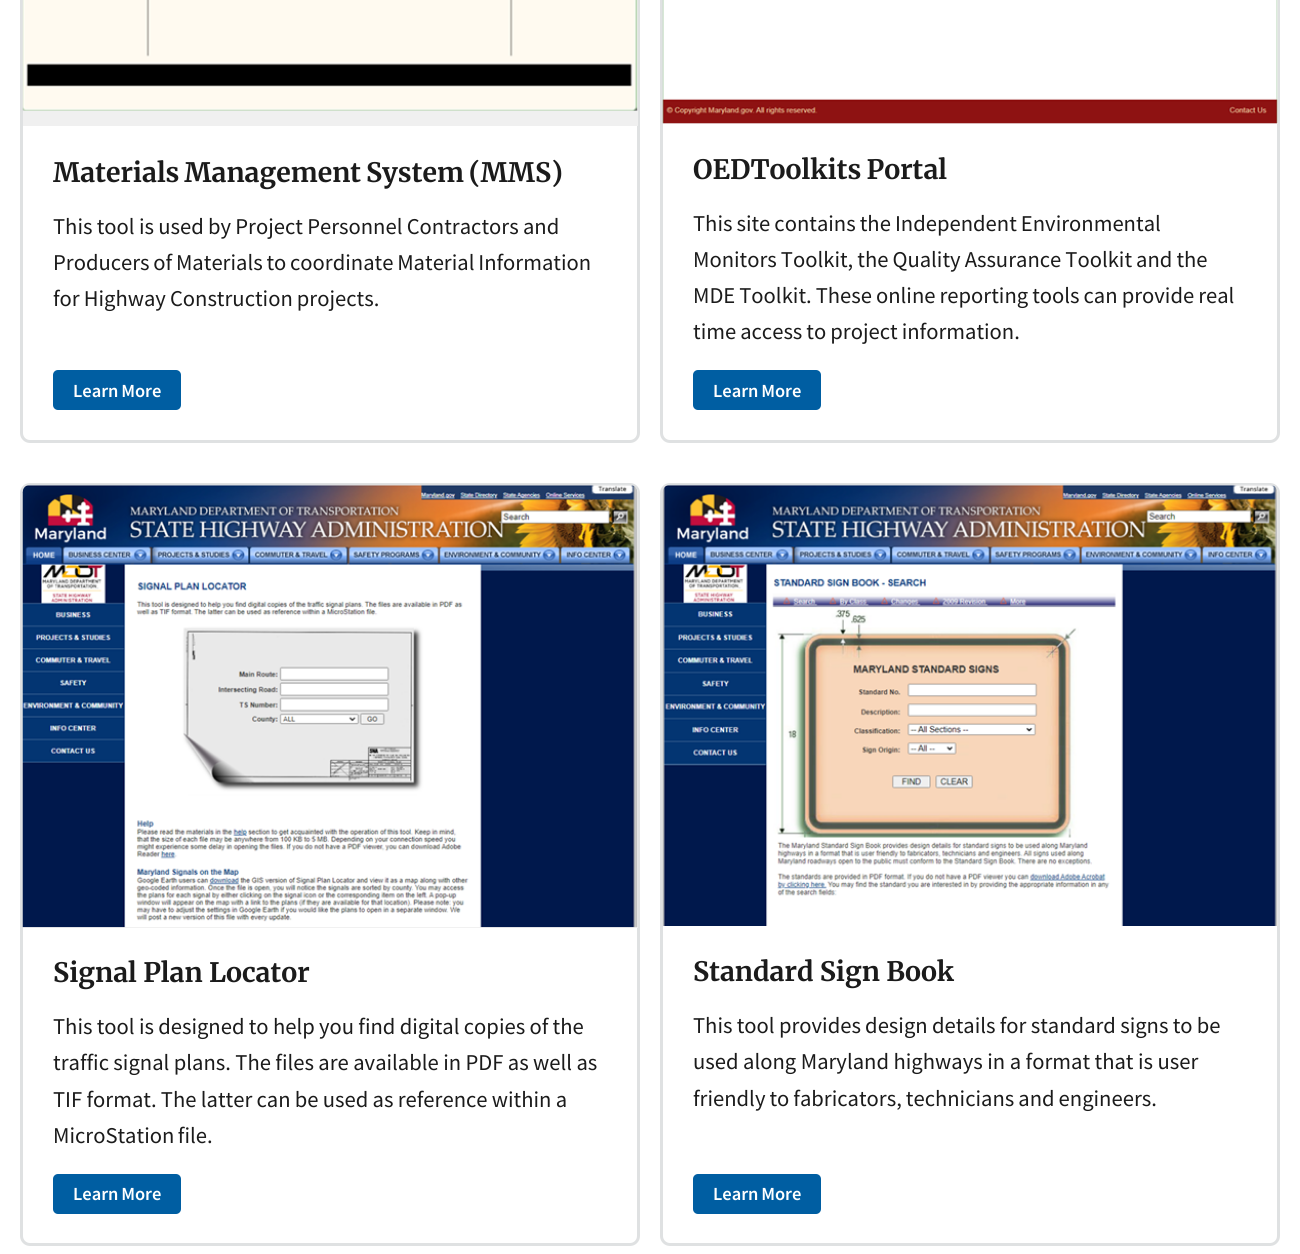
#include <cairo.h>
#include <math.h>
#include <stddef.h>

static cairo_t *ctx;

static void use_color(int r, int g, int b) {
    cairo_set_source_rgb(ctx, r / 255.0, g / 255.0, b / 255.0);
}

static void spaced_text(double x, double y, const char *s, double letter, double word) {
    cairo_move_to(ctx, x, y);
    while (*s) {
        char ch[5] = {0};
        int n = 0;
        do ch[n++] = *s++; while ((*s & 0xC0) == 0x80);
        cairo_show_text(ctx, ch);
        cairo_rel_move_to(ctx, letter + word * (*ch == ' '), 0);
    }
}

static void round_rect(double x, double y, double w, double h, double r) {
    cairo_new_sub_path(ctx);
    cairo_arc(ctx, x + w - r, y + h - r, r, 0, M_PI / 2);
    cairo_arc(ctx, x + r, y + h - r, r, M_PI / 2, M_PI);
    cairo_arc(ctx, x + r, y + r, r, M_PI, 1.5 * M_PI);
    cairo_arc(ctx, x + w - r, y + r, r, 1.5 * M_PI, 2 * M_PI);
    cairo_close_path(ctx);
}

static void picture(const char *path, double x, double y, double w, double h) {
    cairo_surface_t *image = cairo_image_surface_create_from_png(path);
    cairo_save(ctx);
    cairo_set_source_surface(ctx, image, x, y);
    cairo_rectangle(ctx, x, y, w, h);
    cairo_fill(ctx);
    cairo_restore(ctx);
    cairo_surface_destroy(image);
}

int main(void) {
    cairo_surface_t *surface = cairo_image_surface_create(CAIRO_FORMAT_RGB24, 1300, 1254);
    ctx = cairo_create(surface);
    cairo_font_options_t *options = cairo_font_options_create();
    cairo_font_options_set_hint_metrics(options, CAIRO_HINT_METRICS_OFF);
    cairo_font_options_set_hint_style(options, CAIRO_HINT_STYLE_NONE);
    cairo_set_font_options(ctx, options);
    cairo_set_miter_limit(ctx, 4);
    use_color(255, 255, 255);
    cairo_paint(ctx);
    round_rect(21.5, -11.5, 617, 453, 8.5);
    use_color(223, 225, 226);
    cairo_set_line_width(ctx, 3);
    cairo_stroke(ctx);
    use_color(240, 240, 240);
    cairo_rectangle(ctx, 23, 0, 615, 126);
    cairo_fill(ctx);
    picture("img1.png", 22, 0, 616, 111);
    cairo_select_font_face(ctx, "Merriweather Light", CAIRO_FONT_SLANT_NORMAL, CAIRO_FONT_WEIGHT_NORMAL);
    cairo_set_font_size(ctx, 26.75);
    use_color(27, 27, 27);
    spaced_text(53, 182, "Materials Management System (MMS)", 0, -1.5);
    cairo_select_font_face(ctx, "Source Sans Pro", CAIRO_FONT_SLANT_NORMAL, CAIRO_FONT_WEIGHT_NORMAL);
    cairo_set_font_size(ctx, 22.6);
    spaced_text(53, 234, "This tool is used by Project Personnel Contractors and", 0, -0.25);
    spaced_text(53, 270, "Producers of Materials to coordinate Material Information", 0, -0.75);
    spaced_text(53, 306, "for Highway Construction projects.", 0, -0.5);
    use_color(0, 94, 162);
    round_rect(53, 370, 128, 40, 5);
    cairo_fill(ctx);
    cairo_select_font_face(ctx, "Source Sans Pro SemiBold", CAIRO_FONT_SLANT_NORMAL, CAIRO_FONT_WEIGHT_NORMAL);
    cairo_set_font_size(ctx, 18.5);
    use_color(255, 255, 255);
    spaced_text(73, 397, "Learn More", 0, -1);
    round_rect(661.5, -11.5, 617, 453, 8.5);
    use_color(223, 225, 226);
    cairo_stroke(ctx);
    use_color(240, 240, 240);
    cairo_rectangle(ctx, 663, 0, 615, 124);
    cairo_fill(ctx);
    picture("img2.png", 662, 0, 616, 124);
    cairo_select_font_face(ctx, "Merriweather Light", CAIRO_FONT_SLANT_NORMAL, CAIRO_FONT_WEIGHT_NORMAL);
    cairo_set_font_size(ctx, 26.75);
    use_color(27, 27, 27);
    spaced_text(693, 179, "OEDToolkits Portal", 0, -1);
    cairo_select_font_face(ctx, "Source Sans Pro", CAIRO_FONT_SLANT_NORMAL, CAIRO_FONT_WEIGHT_NORMAL);
    cairo_set_font_size(ctx, 22.6);
    spaced_text(693, 231, "This site contains the Independent Environmental", 0, -0.5);
    spaced_text(693, 267, "Monitors Toolkit, the Quality Assurance Toolkit and the", 0, -0.5);
    spaced_text(693, 303, "MDE Toolkit. These online reporting tools can provide real", 0, -0.5);
    spaced_text(693, 339, "time access to project information.", 0, -0.5);
    use_color(0, 94, 162);
    round_rect(693, 370, 128, 40, 5);
    cairo_fill(ctx);
    cairo_select_font_face(ctx, "Source Sans Pro SemiBold", CAIRO_FONT_SLANT_NORMAL, CAIRO_FONT_WEIGHT_NORMAL);
    cairo_set_font_size(ctx, 18.5);
    use_color(255, 255, 255);
    spaced_text(713, 397, "Learn More", 0, -1);
    round_rect(21.5, 484.5, 617, 760, 8.5);
    use_color(223, 225, 226);
    cairo_stroke(ctx);
    use_color(240, 240, 240);
    cairo_new_path(ctx);
    cairo_move_to(ctx, 31, 485);
    cairo_line_to(ctx, 630, 485);
    cairo_curve_to(ctx, 634.5, 485, 638, 488.5, 638, 493);
    cairo_line_to(ctx, 638, 928);
    cairo_line_to(ctx, 23, 928);
    cairo_line_to(ctx, 23, 493);
    cairo_curve_to(ctx, 23, 488.5, 26.5, 485, 31, 485);
    cairo_close_path(ctx);
    cairo_fill(ctx);
    picture("img3.png", 22, 484, 616, 444);
    cairo_select_font_face(ctx, "Merriweather Light", CAIRO_FONT_SLANT_NORMAL, CAIRO_FONT_WEIGHT_NORMAL);
    cairo_set_font_size(ctx, 26.75);
    use_color(27, 27, 27);
    cairo_move_to(ctx, 53, 982);
    cairo_show_text(ctx, "Signal Plan Locator");
    cairo_select_font_face(ctx, "Source Sans Pro", CAIRO_FONT_SLANT_NORMAL, CAIRO_FONT_WEIGHT_NORMAL);
    cairo_set_font_size(ctx, 22.6);
    spaced_text(53, 1034, "This tool is designed to help you find digital copies of the", 0, -0.25);
    spaced_text(53, 1070, "traffic signal plans. The files are available in PDF as well as", 0, -0.1);
    spaced_text(53, 1107, "TIF format. The latter can be used as reference within a", 0, -0.25);
    spaced_text(53, 1143, "MicroStation file.", 0, -1);
    use_color(0, 94, 162);
    round_rect(53, 1174, 128, 40, 5);
    cairo_fill(ctx);
    cairo_select_font_face(ctx, "Source Sans Pro SemiBold", CAIRO_FONT_SLANT_NORMAL, CAIRO_FONT_WEIGHT_NORMAL);
    cairo_set_font_size(ctx, 18.5);
    use_color(255, 255, 255);
    spaced_text(73, 1200, "Learn More", 0, -1);
    round_rect(661.5, 484.5, 617, 760, 8.5);
    use_color(223, 225, 226);
    cairo_stroke(ctx);
    use_color(240, 240, 240);
    cairo_new_path(ctx);
    cairo_move_to(ctx, 671, 485);
    cairo_line_to(ctx, 1270, 485);
    cairo_curve_to(ctx, 1274.5, 485, 1278, 488.5, 1278, 493);
    cairo_line_to(ctx, 1278, 926);
    cairo_line_to(ctx, 663, 926);
    cairo_line_to(ctx, 663, 493);
    cairo_curve_to(ctx, 663, 488.5, 666.5, 485, 671, 485);
    cairo_close_path(ctx);
    cairo_fill(ctx);
    picture("img4.png", 662, 484, 616, 442);
    cairo_select_font_face(ctx, "Merriweather Light", CAIRO_FONT_SLANT_NORMAL, CAIRO_FONT_WEIGHT_NORMAL);
    cairo_set_font_size(ctx, 26.75);
    use_color(27, 27, 27);
    cairo_move_to(ctx, 693, 981);
    cairo_show_text(ctx, "Standard Sign Book");
    cairo_select_font_face(ctx, "Source Sans Pro", CAIRO_FONT_SLANT_NORMAL, CAIRO_FONT_WEIGHT_NORMAL);
    cairo_set_font_size(ctx, 22.6);
    spaced_text(693, 1033, "This tool provides design details for standard signs to be", 0, -0.25);
    cairo_move_to(ctx, 693, 1069);
    cairo_show_text(ctx, "used along Maryland highways in a format that is user");
    spaced_text(693, 1106, "friendly to fabricators, technicians and engineers.", 0, -0.5);
    use_color(0, 94, 162);
    round_rect(693, 1174, 128, 40, 5);
    cairo_fill(ctx);
    cairo_select_font_face(ctx, "Source Sans Pro SemiBold", CAIRO_FONT_SLANT_NORMAL, CAIRO_FONT_WEIGHT_NORMAL);
    cairo_set_font_size(ctx, 18.5);
    use_color(255, 255, 255);
    spaced_text(713, 1200, "Learn More", 0, -1);
    cairo_surface_write_to_png(surface, "result.png");
    cairo_font_options_destroy(options);
    cairo_destroy(ctx);
    cairo_surface_destroy(surface);
    return 0;
}
